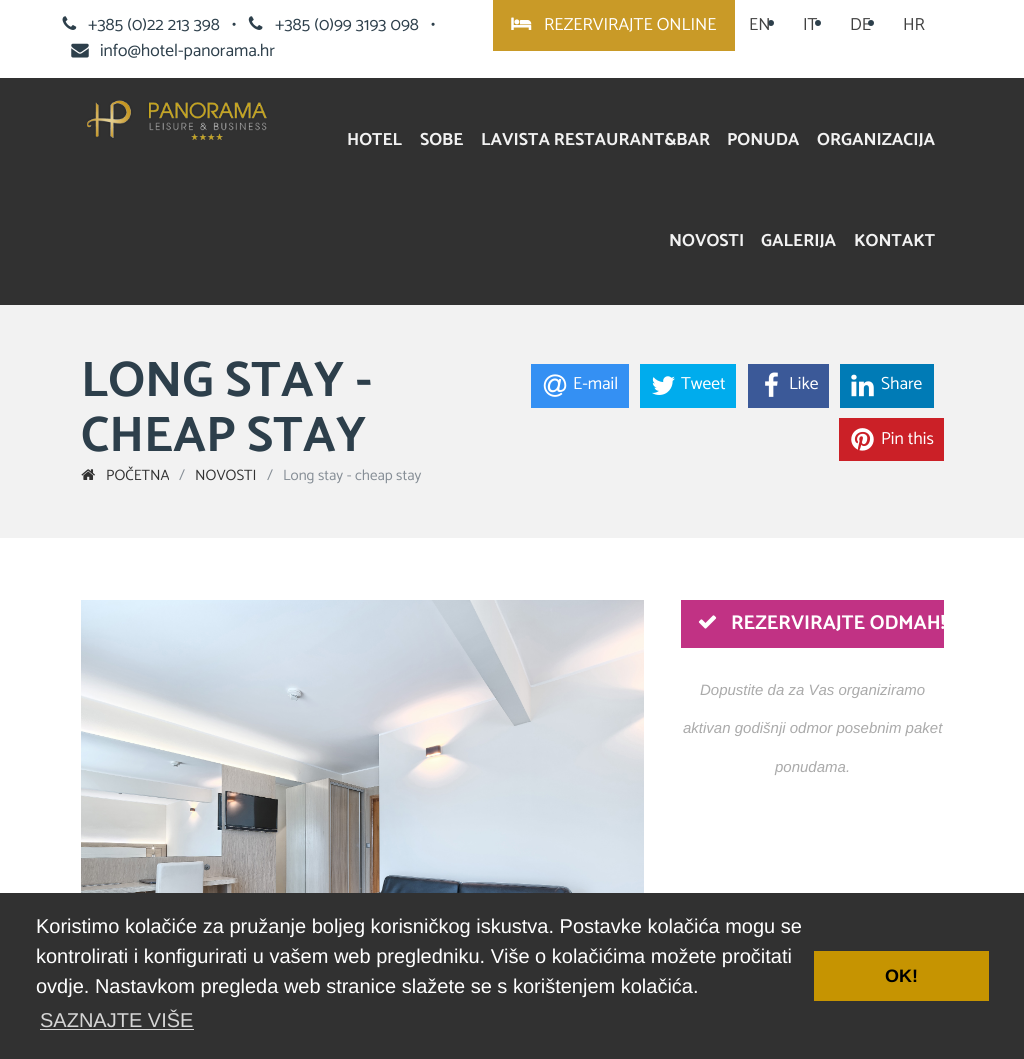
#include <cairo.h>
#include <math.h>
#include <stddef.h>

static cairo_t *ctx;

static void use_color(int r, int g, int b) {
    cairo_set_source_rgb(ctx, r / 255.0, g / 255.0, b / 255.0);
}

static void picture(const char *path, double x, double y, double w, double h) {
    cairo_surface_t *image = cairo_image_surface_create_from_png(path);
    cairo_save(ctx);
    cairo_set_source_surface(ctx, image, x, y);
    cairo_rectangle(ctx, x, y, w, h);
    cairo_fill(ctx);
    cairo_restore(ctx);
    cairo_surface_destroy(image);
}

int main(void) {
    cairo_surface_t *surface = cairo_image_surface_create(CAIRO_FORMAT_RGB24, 1024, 1059);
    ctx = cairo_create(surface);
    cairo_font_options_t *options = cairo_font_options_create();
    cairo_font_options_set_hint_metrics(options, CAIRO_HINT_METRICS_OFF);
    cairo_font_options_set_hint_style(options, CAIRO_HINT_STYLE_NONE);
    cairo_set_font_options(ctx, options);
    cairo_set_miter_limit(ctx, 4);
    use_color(255, 255, 255);
    cairo_paint(ctx);
    picture("img1.png", 62, 16, 15, 14);
    cairo_select_font_face(ctx, "Catamaran", CAIRO_FONT_SLANT_NORMAL, CAIRO_FONT_WEIGHT_NORMAL);
    cairo_set_font_size(ctx, 17.5);
    use_color(45, 63, 75);
    cairo_move_to(ctx, 88, 30);
    cairo_show_text(ctx, "+385 (0)22 213 398   •");
    picture("img2.png", 248, 16, 15, 14);
    cairo_move_to(ctx, 275, 30);
    cairo_show_text(ctx, "+385 (0)99 3193 098   •");
    picture("img3.png", 71, 43, 18, 15);
    cairo_move_to(ctx, 100, 56);
    cairo_show_text(ctx, "info@hotel-panorama.hr");
    use_color(201, 154, 39);
    cairo_rectangle(ctx, 493, 0, 242, 51);
    cairo_fill(ctx);
    picture("img4.png", 511, 17, 21, 13);
    use_color(255, 255, 255);
    cairo_move_to(ctx, 544, 30);
    cairo_show_text(ctx, "REZERVIRAJTE ONLINE");
    use_color(45, 63, 75);
    cairo_new_path(ctx);
    cairo_arc(ctx, 771, 23, 3, 0, 2 * M_PI);
    cairo_fill(ctx);
    use_color(65, 65, 65);
    cairo_move_to(ctx, 749, 30);
    cairo_show_text(ctx, "EN");
    use_color(45, 63, 75);
    cairo_new_path(ctx);
    cairo_arc(ctx, 818, 23, 3, 0, 2 * M_PI);
    cairo_fill(ctx);
    use_color(65, 65, 65);
    cairo_move_to(ctx, 803, 30);
    cairo_show_text(ctx, "IT");
    use_color(45, 63, 75);
    cairo_new_path(ctx);
    cairo_arc(ctx, 871, 23, 3, 0, 2 * M_PI);
    cairo_fill(ctx);
    use_color(65, 65, 65);
    cairo_move_to(ctx, 850, 30);
    cairo_show_text(ctx, "DE");
    cairo_move_to(ctx, 903, 30);
    cairo_show_text(ctx, "HR");
    use_color(49, 49, 49);
    cairo_rectangle(ctx, 0, 78, 1024, 227);
    cairo_fill(ctx);
    picture("img5.png", 87, 100, 180, 40);
    cairo_select_font_face(ctx, "Catamaran", CAIRO_FONT_SLANT_NORMAL, CAIRO_FONT_WEIGHT_BOLD);
    use_color(242, 242, 242);
    cairo_move_to(ctx, 347, 145);
    cairo_show_text(ctx, "HOTEL");
    cairo_move_to(ctx, 420, 145);
    cairo_show_text(ctx, "SOBE");
    cairo_move_to(ctx, 481, 145);
    cairo_show_text(ctx, "LAVISTA RESTAURANT&BAR");
    cairo_move_to(ctx, 727, 145);
    cairo_show_text(ctx, "PONUDA");
    cairo_move_to(ctx, 817, 145);
    cairo_show_text(ctx, "ORGANIZACIJA");
    cairo_move_to(ctx, 669, 246);
    cairo_show_text(ctx, "NOVOSTI");
    cairo_move_to(ctx, 761, 246);
    cairo_show_text(ctx, "GALERIJA");
    cairo_move_to(ctx, 854, 246);
    cairo_show_text(ctx, "KONTAKT");
    cairo_rectangle(ctx, 0, 305, 1024, 233);
    cairo_fill(ctx);
    cairo_set_font_size(ctx, 50);
    use_color(45, 63, 75);
    cairo_move_to(ctx, 81, 396);
    cairo_show_text(ctx, "LONG STAY -");
    cairo_move_to(ctx, 81, 451);
    cairo_show_text(ctx, "CHEAP STAY");
    picture("img6.png", 81, 469, 14, 11);
    cairo_select_font_face(ctx, "Catamaran", CAIRO_FONT_SLANT_NORMAL, CAIRO_FONT_WEIGHT_NORMAL);
    cairo_set_font_size(ctx, 15);
    use_color(49, 49, 49);
    cairo_move_to(ctx, 106, 480);
    cairo_show_text(ctx, "POČETNA");
    use_color(134, 142, 150);
    cairo_move_to(ctx, 179, 480);
    cairo_show_text(ctx, "/");
    use_color(49, 49, 49);
    cairo_move_to(ctx, 195, 480);
    cairo_show_text(ctx, "NOVOSTI");
    use_color(134, 142, 150);
    cairo_move_to(ctx, 267, 480);
    cairo_show_text(ctx, "/");
    cairo_move_to(ctx, 283, 480);
    cairo_show_text(ctx, "Long stay - cheap stay");
    use_color(52, 144, 243);
    cairo_rectangle(ctx, 531, 364, 98, 44);
    cairo_fill(ctx);
    picture("img7.png", 543, 374, 24, 23);
    cairo_set_font_size(ctx, 17.5);
    use_color(255, 255, 255);
    cairo_move_to(ctx, 573, 389);
    cairo_show_text(ctx, "E-mail");
    use_color(0, 172, 237);
    cairo_rectangle(ctx, 640, 364, 96, 44);
    cairo_fill(ctx);
    picture("img8.png", 652, 376, 23, 19);
    use_color(255, 255, 255);
    cairo_move_to(ctx, 681, 389);
    cairo_show_text(ctx, "Tweet");
    use_color(59, 89, 152);
    cairo_rectangle(ctx, 748, 364, 81, 44);
    cairo_fill(ctx);
    picture("img9.png", 765, 372, 13, 25);
    use_color(255, 255, 255);
    cairo_move_to(ctx, 789, 389);
    cairo_show_text(ctx, "Like");
    use_color(0, 123, 182);
    cairo_rectangle(ctx, 840, 364, 94, 44);
    cairo_fill(ctx);
    picture("img10.png", 851, 374, 23, 23);
    use_color(255, 255, 255);
    cairo_move_to(ctx, 881, 389);
    cairo_show_text(ctx, "Share");
    use_color(203, 32, 39);
    cairo_rectangle(ctx, 839, 418, 105, 43);
    cairo_fill(ctx);
    picture("img11.png", 851, 428, 23, 23);
    use_color(255, 255, 255);
    cairo_move_to(ctx, 881, 444);
    cairo_show_text(ctx, "Pin this");
    picture("img12.png", 81, 600, 563, 293);
    use_color(193, 50, 132);
    cairo_rectangle(ctx, 681, 600, 263, 48);
    cairo_fill(ctx);
    picture("img13.png", 698, 615, 19, 14);
    cairo_select_font_face(ctx, "Catamaran", CAIRO_FONT_SLANT_NORMAL, CAIRO_FONT_WEIGHT_BOLD);
    cairo_set_font_size(ctx, 20);
    use_color(255, 255, 255);
    cairo_move_to(ctx, 731, 629);
    cairo_show_text(ctx, "REZERVIRAJTE ODMAH!");
    cairo_select_font_face(ctx, "Liberation Sans", CAIRO_FONT_SLANT_ITALIC, CAIRO_FONT_WEIGHT_NORMAL);
    cairo_set_font_size(ctx, 15);
    use_color(170, 170, 170);
    cairo_move_to(ctx, 700, 695);
    cairo_show_text(ctx, "Dopustite da za Vas organiziramo");
    cairo_move_to(ctx, 683, 733);
    cairo_show_text(ctx, "aktivan godišnji odmor posebnim paket");
    cairo_move_to(ctx, 775, 772);
    cairo_show_text(ctx, "ponudama.");
    use_color(49, 49, 49);
    cairo_rectangle(ctx, 0, 893, 1024, 166);
    cairo_fill(ctx);
    cairo_select_font_face(ctx, "Liberation Sans", CAIRO_FONT_SLANT_NORMAL, CAIRO_FONT_WEIGHT_NORMAL);
    cairo_set_font_size(ctx, 20);
    use_color(255, 255, 255);
    cairo_move_to(ctx, 36, 933);
    cairo_show_text(ctx, "Koristimo kolačiće za pružanje boljeg korisničkog iskustva. Postavke kolačića mogu se");
    cairo_move_to(ctx, 36, 963);
    cairo_show_text(ctx, "kontrolirati i konfigurirati u vašem web pregledniku. Više o kolačićima možete pročitati");
    cairo_move_to(ctx, 36, 993);
    cairo_show_text(ctx, "ovdje. Nastavkom pregleda web stranice slažete se s korištenjem kolačića.");
    use_color(214, 214, 214);
    cairo_move_to(ctx, 40, 1027);
    cairo_show_text(ctx, "SAZNAJTE VIŠE");
    cairo_rectangle(ctx, 40, 1029, 154, 1);
    cairo_fill(ctx);
    use_color(198, 148, 1);
    cairo_rectangle(ctx, 814, 951, 175, 50);
    cairo_fill(ctx);
    cairo_select_font_face(ctx, "Liberation Sans", CAIRO_FONT_SLANT_NORMAL, CAIRO_FONT_WEIGHT_BOLD);
    cairo_set_font_size(ctx, 18);
    use_color(0, 0, 0);
    cairo_move_to(ctx, 885, 982);
    cairo_show_text(ctx, "OK!");
    cairo_surface_write_to_png(surface, "result.png");
    cairo_font_options_destroy(options);
    cairo_destroy(ctx);
    cairo_surface_destroy(surface);
    return 0;
}
